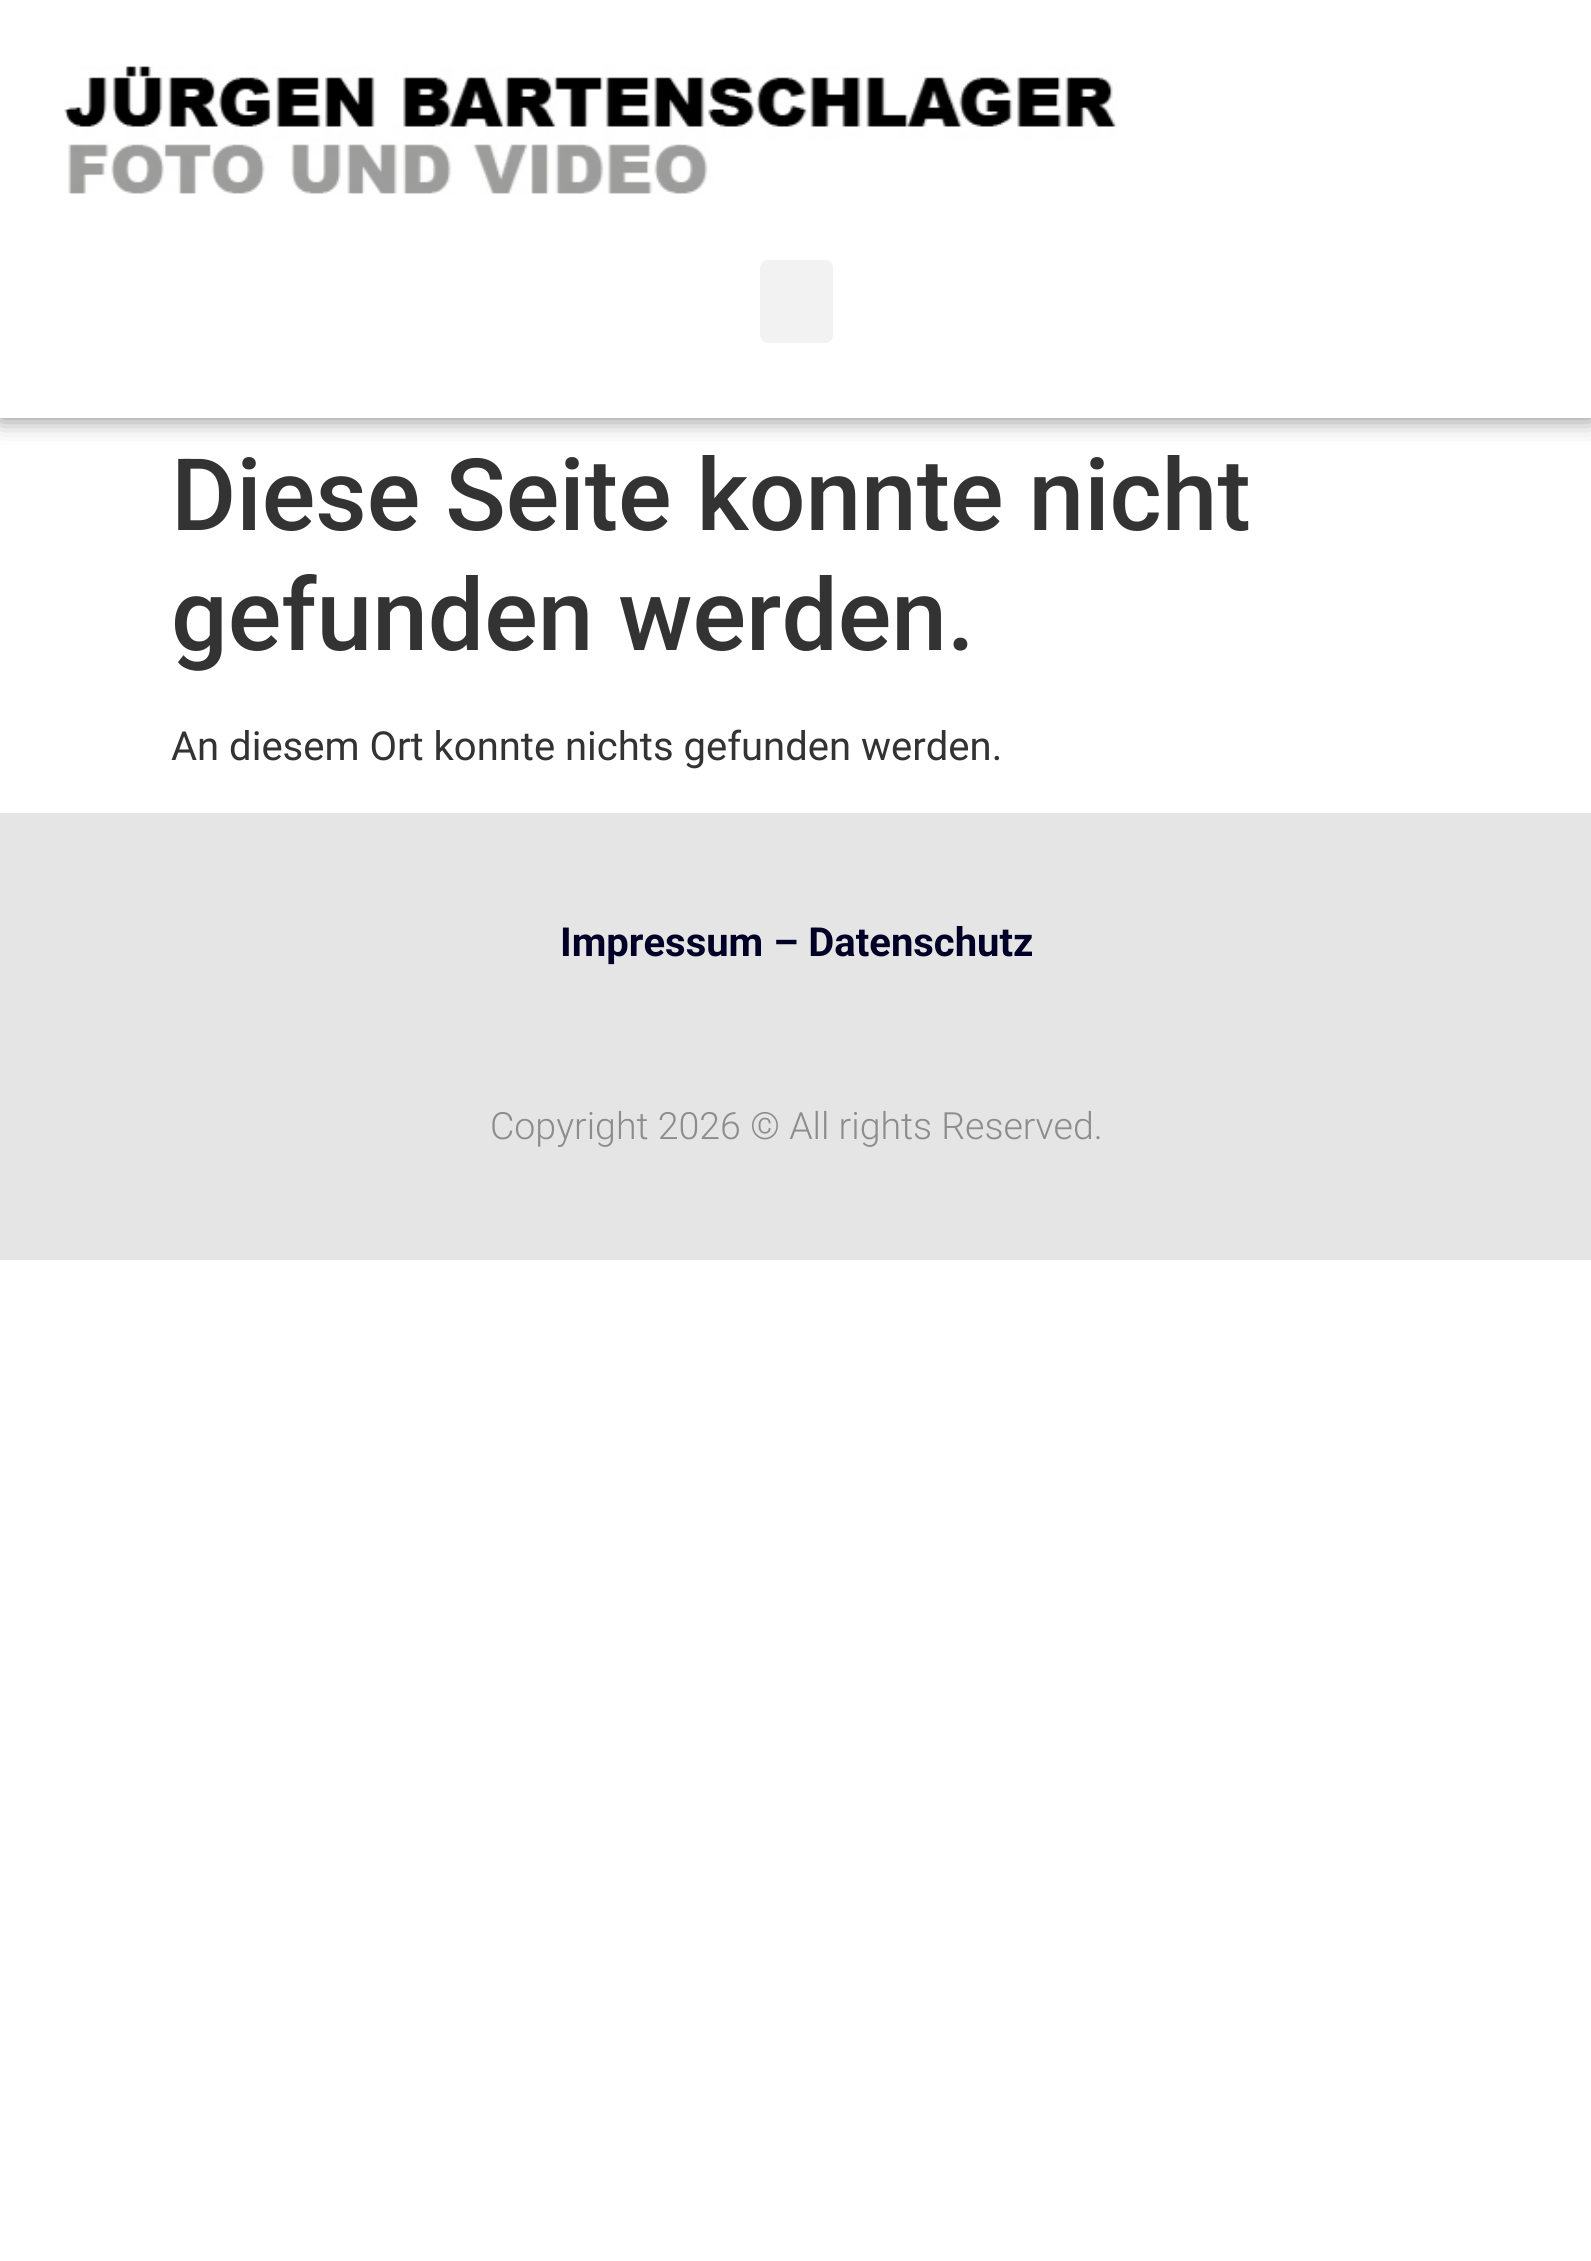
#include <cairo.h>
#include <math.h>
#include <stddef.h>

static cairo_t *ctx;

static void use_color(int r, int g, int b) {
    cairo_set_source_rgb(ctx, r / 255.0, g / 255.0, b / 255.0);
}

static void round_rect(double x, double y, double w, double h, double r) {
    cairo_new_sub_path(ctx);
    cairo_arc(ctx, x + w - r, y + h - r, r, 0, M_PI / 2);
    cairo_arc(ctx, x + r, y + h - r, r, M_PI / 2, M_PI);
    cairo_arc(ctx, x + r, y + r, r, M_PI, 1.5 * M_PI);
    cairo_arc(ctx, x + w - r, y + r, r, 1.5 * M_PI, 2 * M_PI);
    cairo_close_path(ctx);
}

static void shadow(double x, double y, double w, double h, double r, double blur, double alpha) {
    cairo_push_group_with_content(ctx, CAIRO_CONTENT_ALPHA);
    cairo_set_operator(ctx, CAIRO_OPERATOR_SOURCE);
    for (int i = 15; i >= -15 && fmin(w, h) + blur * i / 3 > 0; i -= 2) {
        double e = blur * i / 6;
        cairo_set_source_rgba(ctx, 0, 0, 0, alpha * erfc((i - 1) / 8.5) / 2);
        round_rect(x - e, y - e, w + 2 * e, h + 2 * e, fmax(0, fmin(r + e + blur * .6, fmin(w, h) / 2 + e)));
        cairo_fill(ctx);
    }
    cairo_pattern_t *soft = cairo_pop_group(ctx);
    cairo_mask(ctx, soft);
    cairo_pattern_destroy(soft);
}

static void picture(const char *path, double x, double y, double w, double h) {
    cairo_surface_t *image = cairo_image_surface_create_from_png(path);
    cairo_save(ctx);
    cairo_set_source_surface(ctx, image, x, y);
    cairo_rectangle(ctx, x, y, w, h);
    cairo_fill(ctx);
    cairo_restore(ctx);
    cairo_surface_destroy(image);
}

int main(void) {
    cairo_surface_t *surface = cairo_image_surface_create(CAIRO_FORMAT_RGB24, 1591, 2261);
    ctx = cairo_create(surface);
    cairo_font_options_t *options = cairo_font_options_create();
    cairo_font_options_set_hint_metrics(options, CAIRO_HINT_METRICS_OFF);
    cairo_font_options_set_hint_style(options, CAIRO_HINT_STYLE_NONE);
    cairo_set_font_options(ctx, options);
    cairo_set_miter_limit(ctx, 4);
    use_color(255, 255, 255);
    cairo_paint(ctx);
    use_color(0, 0, 0);
    shadow(0, 0, 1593, 418, 0, 12.5, 0.5);
    use_color(255, 255, 255);
    cairo_rectangle(ctx, 0, 0, 1591, 418);
    cairo_fill(ctx);
    picture("img1.png", 64, 66, 1053, 128);
    use_color(242, 242, 242);
    round_rect(760, 260, 73, 83, 8);
    cairo_fill(ctx);
    cairo_select_font_face(ctx, "Roboto Medium", CAIRO_FONT_SLANT_NORMAL, CAIRO_FONT_WEIGHT_NORMAL);
    cairo_set_font_size(ctx, 100);
    use_color(51, 51, 51);
    cairo_move_to(ctx, 171, 530);
    cairo_show_text(ctx, "Diese Seite konnte nicht");
    cairo_move_to(ctx, 171, 650);
    cairo_show_text(ctx, "gefunden werden.");
    cairo_select_font_face(ctx, "Roboto", CAIRO_FONT_SLANT_NORMAL, CAIRO_FONT_WEIGHT_NORMAL);
    cairo_set_font_size(ctx, 40);
    cairo_move_to(ctx, 171, 760);
    cairo_show_text(ctx, "An diesem Ort konnte nichts gefunden werden.");
    use_color(229, 229, 229);
    cairo_rectangle(ctx, 0, 813, 1591, 447);
    cairo_fill(ctx);
    cairo_select_font_face(ctx, "Roboto", CAIRO_FONT_SLANT_NORMAL, CAIRO_FONT_WEIGHT_BOLD);
    use_color(0, 0, 39);
    cairo_move_to(ctx, 560, 956);
    cairo_show_text(ctx, "Impressum – Datenschutz");
    cairo_select_font_face(ctx, "Roboto Light", CAIRO_FONT_SLANT_NORMAL, CAIRO_FONT_WEIGHT_NORMAL);
    cairo_set_font_size(ctx, 37.5);
    use_color(140, 140, 140);
    cairo_move_to(ctx, 490, 1139);
    cairo_show_text(ctx, "Copyright 2026 © All rights Reserved.");
    cairo_surface_write_to_png(surface, "result.png");
    cairo_font_options_destroy(options);
    cairo_destroy(ctx);
    cairo_surface_destroy(surface);
    return 0;
}
